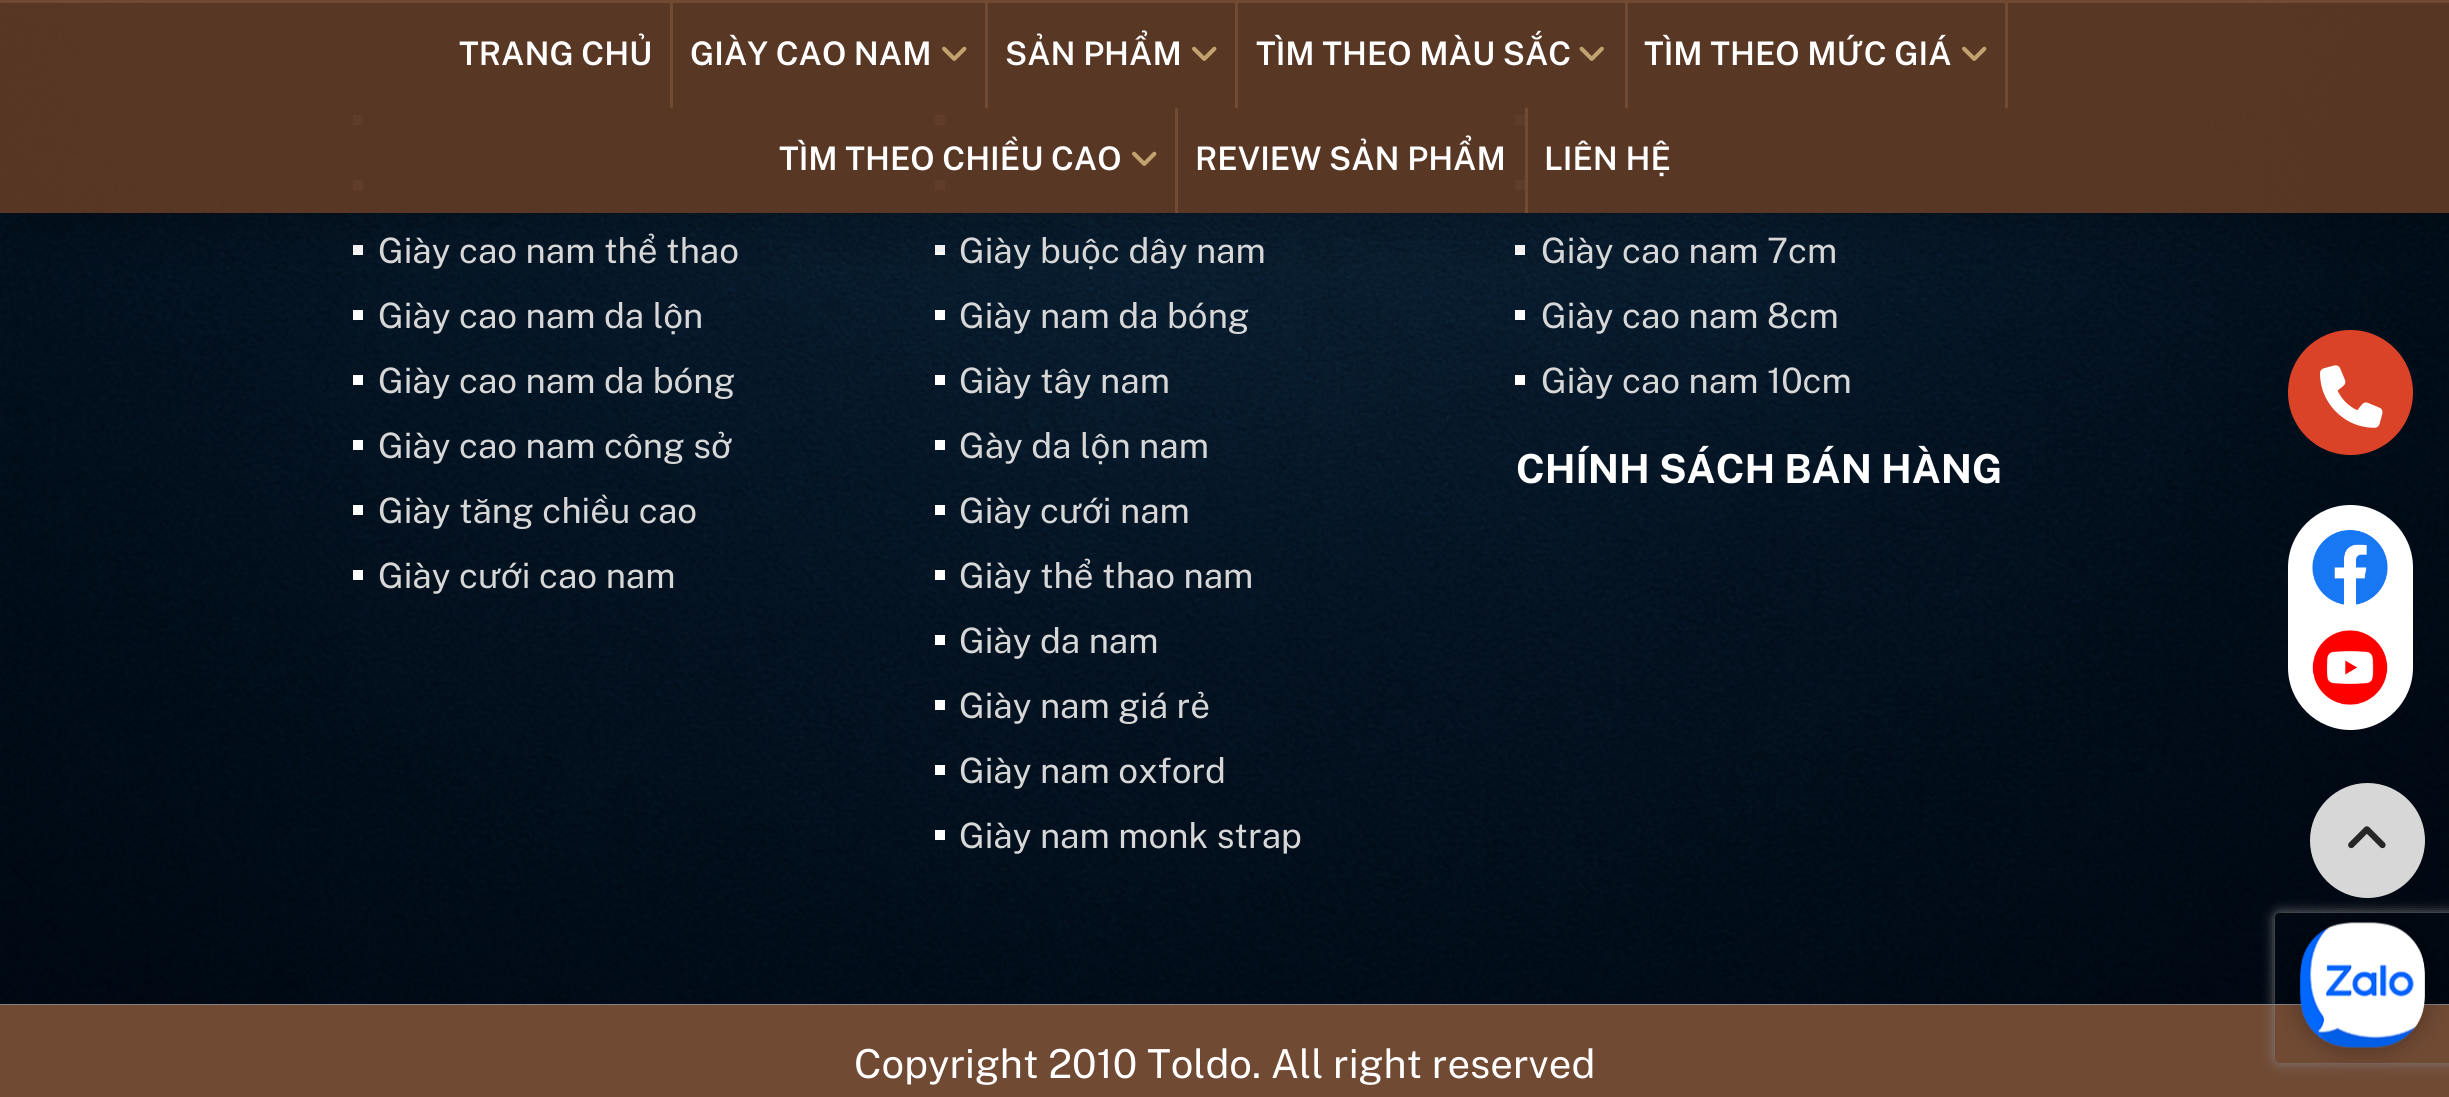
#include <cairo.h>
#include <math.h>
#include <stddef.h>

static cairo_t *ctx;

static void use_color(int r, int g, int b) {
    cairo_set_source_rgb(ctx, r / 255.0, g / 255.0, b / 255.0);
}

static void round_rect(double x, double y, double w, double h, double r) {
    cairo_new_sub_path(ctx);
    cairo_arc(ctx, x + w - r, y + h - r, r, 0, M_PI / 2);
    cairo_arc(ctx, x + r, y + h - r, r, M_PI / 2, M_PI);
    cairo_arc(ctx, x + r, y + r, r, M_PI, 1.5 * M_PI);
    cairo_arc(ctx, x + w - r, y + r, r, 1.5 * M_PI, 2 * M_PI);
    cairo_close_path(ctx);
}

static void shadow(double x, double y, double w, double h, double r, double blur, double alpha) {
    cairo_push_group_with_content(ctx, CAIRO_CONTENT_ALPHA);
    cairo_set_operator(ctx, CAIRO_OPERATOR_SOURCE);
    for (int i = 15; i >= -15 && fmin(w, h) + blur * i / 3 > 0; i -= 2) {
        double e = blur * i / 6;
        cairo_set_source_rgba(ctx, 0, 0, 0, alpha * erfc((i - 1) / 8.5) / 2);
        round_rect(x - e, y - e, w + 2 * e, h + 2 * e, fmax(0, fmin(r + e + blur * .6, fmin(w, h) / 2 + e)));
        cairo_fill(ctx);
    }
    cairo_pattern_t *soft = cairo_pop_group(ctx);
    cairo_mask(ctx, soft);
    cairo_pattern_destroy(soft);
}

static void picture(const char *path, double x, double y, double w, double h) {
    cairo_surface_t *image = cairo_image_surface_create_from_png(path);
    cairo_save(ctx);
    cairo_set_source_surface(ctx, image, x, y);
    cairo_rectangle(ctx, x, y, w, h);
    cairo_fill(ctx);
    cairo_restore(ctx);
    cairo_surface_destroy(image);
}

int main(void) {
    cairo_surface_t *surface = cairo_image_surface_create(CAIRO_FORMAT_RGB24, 2449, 1097);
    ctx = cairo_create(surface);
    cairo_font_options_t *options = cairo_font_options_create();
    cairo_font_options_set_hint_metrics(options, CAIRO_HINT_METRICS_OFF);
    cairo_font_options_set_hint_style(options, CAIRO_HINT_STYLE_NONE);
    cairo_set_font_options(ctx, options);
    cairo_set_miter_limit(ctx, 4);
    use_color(255, 255, 255);
    cairo_paint(ctx);
    picture("img6.png", 0, 3, 2449, 1002);
    use_color(255, 255, 255);
    cairo_rectangle(ctx, 353, 115, 10, 10);
    cairo_fill(ctx);
    cairo_rectangle(ctx, 353, 180, 10, 10);
    cairo_fill(ctx);
    cairo_rectangle(ctx, 353, 245, 10, 10);
    cairo_fill(ctx);
    cairo_rectangle(ctx, 353, 310, 10, 10);
    cairo_fill(ctx);
    cairo_rectangle(ctx, 935, 115, 10, 10);
    cairo_fill(ctx);
    cairo_rectangle(ctx, 935, 180, 10, 10);
    cairo_fill(ctx);
    cairo_rectangle(ctx, 935, 245, 10, 10);
    cairo_fill(ctx);
    cairo_rectangle(ctx, 935, 310, 10, 10);
    cairo_fill(ctx);
    cairo_rectangle(ctx, 1515, 115, 10, 10);
    cairo_fill(ctx);
    cairo_rectangle(ctx, 1515, 180, 10, 10);
    cairo_fill(ctx);
    cairo_rectangle(ctx, 1515, 245, 10, 10);
    cairo_fill(ctx);
    cairo_rectangle(ctx, 1515, 310, 10, 10);
    cairo_fill(ctx);
    cairo_save(ctx);
    cairo_set_fill_rule(ctx, CAIRO_FILL_RULE_EVEN_ODD);
    cairo_new_path(ctx);
    cairo_move_to(ctx, 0, 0);
    cairo_line_to(ctx, 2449, 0);
    cairo_line_to(ctx, 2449, 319);
    cairo_line_to(ctx, 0, 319);
    cairo_close_path(ctx);
    cairo_move_to(ctx, 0, 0);
    cairo_line_to(ctx, 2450, 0);
    cairo_line_to(ctx, 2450, 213);
    cairo_line_to(ctx, 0, 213);
    cairo_close_path(ctx);
    cairo_clip(ctx);
    use_color(0, 0, 0);
    shadow(25, 43, 2405, 167, 0, 36, 0.4);
    cairo_restore(ctx);
    cairo_set_source_rgba(ctx, 0.357, 0.22, 0.141, 0.97);
    cairo_rectangle(ctx, 0, 3, 2449, 210);
    cairo_fill(ctx);
    use_color(113, 74, 52);
    cairo_rectangle(ctx, 0, 0, 2449, 3);
    cairo_fill(ctx);
    cairo_rectangle(ctx, 670, 3, 3, 105);
    cairo_fill(ctx);
    cairo_select_font_face(ctx, "Public Sans SemiBold", CAIRO_FONT_SLANT_NORMAL, CAIRO_FONT_WEIGHT_NORMAL);
    cairo_set_font_size(ctx, 32.5);
    use_color(255, 255, 255);
    cairo_move_to(ctx, 459, 65);
    cairo_show_text(ctx, "TRANG CHỦ");
    use_color(113, 74, 52);
    cairo_rectangle(ctx, 985, 3, 3, 105);
    cairo_fill(ctx);
    use_color(255, 255, 255);
    cairo_move_to(ctx, 690, 65);
    cairo_show_text(ctx, "GIÀY CAO NAM");
    picture("img1.png", 942, 46, 25, 15);
    use_color(113, 74, 52);
    cairo_rectangle(ctx, 1235, 3, 3, 105);
    cairo_fill(ctx);
    use_color(255, 255, 255);
    cairo_move_to(ctx, 1005, 65);
    cairo_show_text(ctx, "SẢN PHẨM");
    picture("img2.png", 1192, 46, 25, 15);
    use_color(113, 74, 52);
    cairo_rectangle(ctx, 1625, 3, 3, 105);
    cairo_fill(ctx);
    use_color(255, 255, 255);
    cairo_move_to(ctx, 1256, 65);
    cairo_show_text(ctx, "TÌM THEO MÀU SẮC");
    picture("img3.png", 1579, 46, 25, 15);
    use_color(113, 74, 52);
    cairo_rectangle(ctx, 2005, 3, 3, 105);
    cairo_fill(ctx);
    use_color(255, 255, 255);
    cairo_move_to(ctx, 1644, 65);
    cairo_show_text(ctx, "TÌM THEO MỨC GIÁ");
    picture("img4.png", 1962, 46, 25, 15);
    use_color(113, 74, 52);
    cairo_rectangle(ctx, 1175, 108, 3, 105);
    cairo_fill(ctx);
    use_color(255, 255, 255);
    cairo_move_to(ctx, 779, 170);
    cairo_show_text(ctx, "TÌM THEO CHIỀU CAO");
    picture("img5.png", 1132, 151, 25, 15);
    use_color(113, 74, 52);
    cairo_rectangle(ctx, 1525, 108, 3, 105);
    cairo_fill(ctx);
    use_color(255, 255, 255);
    cairo_move_to(ctx, 1195, 170);
    cairo_show_text(ctx, "REVIEW SẢN PHẨM");
    cairo_move_to(ctx, 1544, 170);
    cairo_show_text(ctx, "LIÊN HỆ");
    cairo_select_font_face(ctx, "Public Sans", CAIRO_FONT_SLANT_NORMAL, CAIRO_FONT_WEIGHT_NORMAL);
    cairo_set_font_size(ctx, 35);
    use_color(215, 215, 215);
    cairo_move_to(ctx, 378, 263);
    cairo_show_text(ctx, "Giày cao nam thể thao");
    cairo_move_to(ctx, 378, 328);
    cairo_show_text(ctx, "Giày cao nam da lộn");
    use_color(255, 255, 255);
    cairo_rectangle(ctx, 353, 375, 10, 10);
    cairo_fill(ctx);
    use_color(215, 215, 215);
    cairo_move_to(ctx, 378, 393);
    cairo_show_text(ctx, "Giày cao nam da bóng");
    use_color(255, 255, 255);
    cairo_rectangle(ctx, 353, 440, 10, 10);
    cairo_fill(ctx);
    use_color(215, 215, 215);
    cairo_move_to(ctx, 378, 458);
    cairo_show_text(ctx, "Giày cao nam công sở");
    use_color(255, 255, 255);
    cairo_rectangle(ctx, 353, 505, 10, 10);
    cairo_fill(ctx);
    use_color(215, 215, 215);
    cairo_move_to(ctx, 378, 523);
    cairo_show_text(ctx, "Giày tăng chiều cao");
    use_color(255, 255, 255);
    cairo_rectangle(ctx, 353, 570, 10, 10);
    cairo_fill(ctx);
    use_color(215, 215, 215);
    cairo_move_to(ctx, 378, 588);
    cairo_show_text(ctx, "Giày cưới cao nam");
    cairo_move_to(ctx, 959, 263);
    cairo_show_text(ctx, "Giày buộc dây nam");
    cairo_move_to(ctx, 959, 328);
    cairo_show_text(ctx, "Giày nam da bóng");
    use_color(255, 255, 255);
    cairo_rectangle(ctx, 935, 375, 10, 10);
    cairo_fill(ctx);
    use_color(215, 215, 215);
    cairo_move_to(ctx, 959, 393);
    cairo_show_text(ctx, "Giày tây nam");
    use_color(255, 255, 255);
    cairo_rectangle(ctx, 935, 440, 10, 10);
    cairo_fill(ctx);
    use_color(215, 215, 215);
    cairo_move_to(ctx, 959, 458);
    cairo_show_text(ctx, "Gày da lộn nam");
    use_color(255, 255, 255);
    cairo_rectangle(ctx, 935, 505, 10, 10);
    cairo_fill(ctx);
    use_color(215, 215, 215);
    cairo_move_to(ctx, 959, 523);
    cairo_show_text(ctx, "Giày cưới nam");
    use_color(255, 255, 255);
    cairo_rectangle(ctx, 935, 570, 10, 10);
    cairo_fill(ctx);
    use_color(215, 215, 215);
    cairo_move_to(ctx, 959, 588);
    cairo_show_text(ctx, "Giày thể thao nam");
    use_color(255, 255, 255);
    cairo_rectangle(ctx, 935, 635, 10, 10);
    cairo_fill(ctx);
    use_color(215, 215, 215);
    cairo_move_to(ctx, 959, 653);
    cairo_show_text(ctx, "Giày da nam");
    use_color(255, 255, 255);
    cairo_rectangle(ctx, 935, 700, 10, 10);
    cairo_fill(ctx);
    use_color(215, 215, 215);
    cairo_move_to(ctx, 959, 718);
    cairo_show_text(ctx, "Giày nam giá rẻ");
    use_color(255, 255, 255);
    cairo_rectangle(ctx, 935, 765, 10, 10);
    cairo_fill(ctx);
    use_color(215, 215, 215);
    cairo_move_to(ctx, 959, 783);
    cairo_show_text(ctx, "Giày nam oxford");
    use_color(255, 255, 255);
    cairo_rectangle(ctx, 935, 830, 10, 10);
    cairo_fill(ctx);
    use_color(215, 215, 215);
    cairo_move_to(ctx, 959, 848);
    cairo_show_text(ctx, "Giày nam monk strap");
    cairo_move_to(ctx, 1541, 263);
    cairo_show_text(ctx, "Giày cao nam 7cm");
    cairo_move_to(ctx, 1541, 328);
    cairo_show_text(ctx, "Giày cao nam 8cm");
    use_color(255, 255, 255);
    cairo_rectangle(ctx, 1515, 375, 10, 10);
    cairo_fill(ctx);
    use_color(215, 215, 215);
    cairo_move_to(ctx, 1541, 393);
    cairo_show_text(ctx, "Giày cao nam 10cm");
    cairo_select_font_face(ctx, "Public Sans", CAIRO_FONT_SLANT_NORMAL, CAIRO_FONT_WEIGHT_BOLD);
    cairo_set_font_size(ctx, 40);
    use_color(255, 255, 255);
    cairo_move_to(ctx, 1516, 483);
    cairo_show_text(ctx, "CHÍNH SÁCH BÁN HÀNG");
    use_color(219, 67, 41);
    cairo_new_path(ctx);
    cairo_arc(ctx, 2350.5, 392.5, 62.5, 0, 2 * M_PI);
    cairo_fill(ctx);
    picture("img7.png", 2320, 365, 63, 63);
    use_color(255, 255, 255);
    round_rect(2288, 505, 125, 225, 62.5);
    cairo_fill(ctx);
    picture("img8.png", 2312, 530, 76, 75);
    picture("img9.png", 2312, 630, 76, 75);
    use_color(215, 215, 215);
    cairo_arc(ctx, 2367.5, 840.5, 57.5, 0, 2 * M_PI);
    cairo_fill(ctx);
    use_color(113, 74, 52);
    cairo_rectangle(ctx, 0, 1005, 2449, 92);
    cairo_fill(ctx);
    cairo_save(ctx);
    cairo_set_fill_rule(ctx, CAIRO_FILL_RULE_EVEN_ODD);
    cairo_new_path(ctx);
    cairo_move_to(ctx, 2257, 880);
    cairo_line_to(ctx, 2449, 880);
    cairo_line_to(ctx, 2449, 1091);
    cairo_line_to(ctx, 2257, 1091);
    cairo_close_path(ctx);
    cairo_move_to(ctx, 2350, 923);
    cairo_line_to(ctx, 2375, 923);
    cairo_curve_to(ctx, 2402.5, 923, 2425, 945.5, 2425, 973);
    cairo_line_to(ctx, 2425, 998);
    cairo_curve_to(ctx, 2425, 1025.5, 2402.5, 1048, 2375, 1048);
    cairo_line_to(ctx, 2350, 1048);
    cairo_curve_to(ctx, 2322.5, 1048, 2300, 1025.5, 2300, 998);
    cairo_line_to(ctx, 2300, 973);
    cairo_curve_to(ctx, 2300, 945.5, 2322.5, 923, 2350, 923);
    cairo_close_path(ctx);
    cairo_clip(ctx);
    use_color(0, 0, 0);
    shadow(2300, 923, 125, 125, 50, 14, 0.32);
    cairo_restore(ctx);
    cairo_save(ctx);
    cairo_set_fill_rule(ctx, CAIRO_FILL_RULE_EVEN_ODD);
    cairo_new_path(ctx);
    cairo_move_to(ctx, 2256, 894);
    cairo_line_to(ctx, 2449, 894);
    cairo_line_to(ctx, 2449, 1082);
    cairo_line_to(ctx, 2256, 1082);
    cairo_close_path(ctx);
    cairo_move_to(ctx, 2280, 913);
    cairo_line_to(ctx, 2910, 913);
    cairo_curve_to(ctx, 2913, 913, 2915, 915, 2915, 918);
    cairo_line_to(ctx, 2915, 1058);
    cairo_curve_to(ctx, 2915, 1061, 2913, 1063, 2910, 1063);
    cairo_line_to(ctx, 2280, 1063);
    cairo_curve_to(ctx, 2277, 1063, 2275, 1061, 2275, 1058);
    cairo_line_to(ctx, 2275, 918);
    cairo_curve_to(ctx, 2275, 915, 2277, 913, 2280, 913);
    cairo_close_path(ctx);
    cairo_clip(ctx);
    use_color(128, 128, 128);
    shadow(2275, 913, 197, 150, 5, 6, 1);
    cairo_restore(ctx);
    picture("img10.png", 2300, 922, 125, 126);
    picture("img11.png", 2348, 826, 38, 23);
    cairo_select_font_face(ctx, "Public Sans", CAIRO_FONT_SLANT_NORMAL, CAIRO_FONT_WEIGHT_NORMAL);
    use_color(255, 255, 255);
    cairo_move_to(ctx, 854, 1078);
    cairo_show_text(ctx, "Copyright 2010 Toldo. All right reserved");
    cairo_surface_write_to_png(surface, "result.png");
    cairo_font_options_destroy(options);
    cairo_destroy(ctx);
    cairo_surface_destroy(surface);
    return 0;
}
